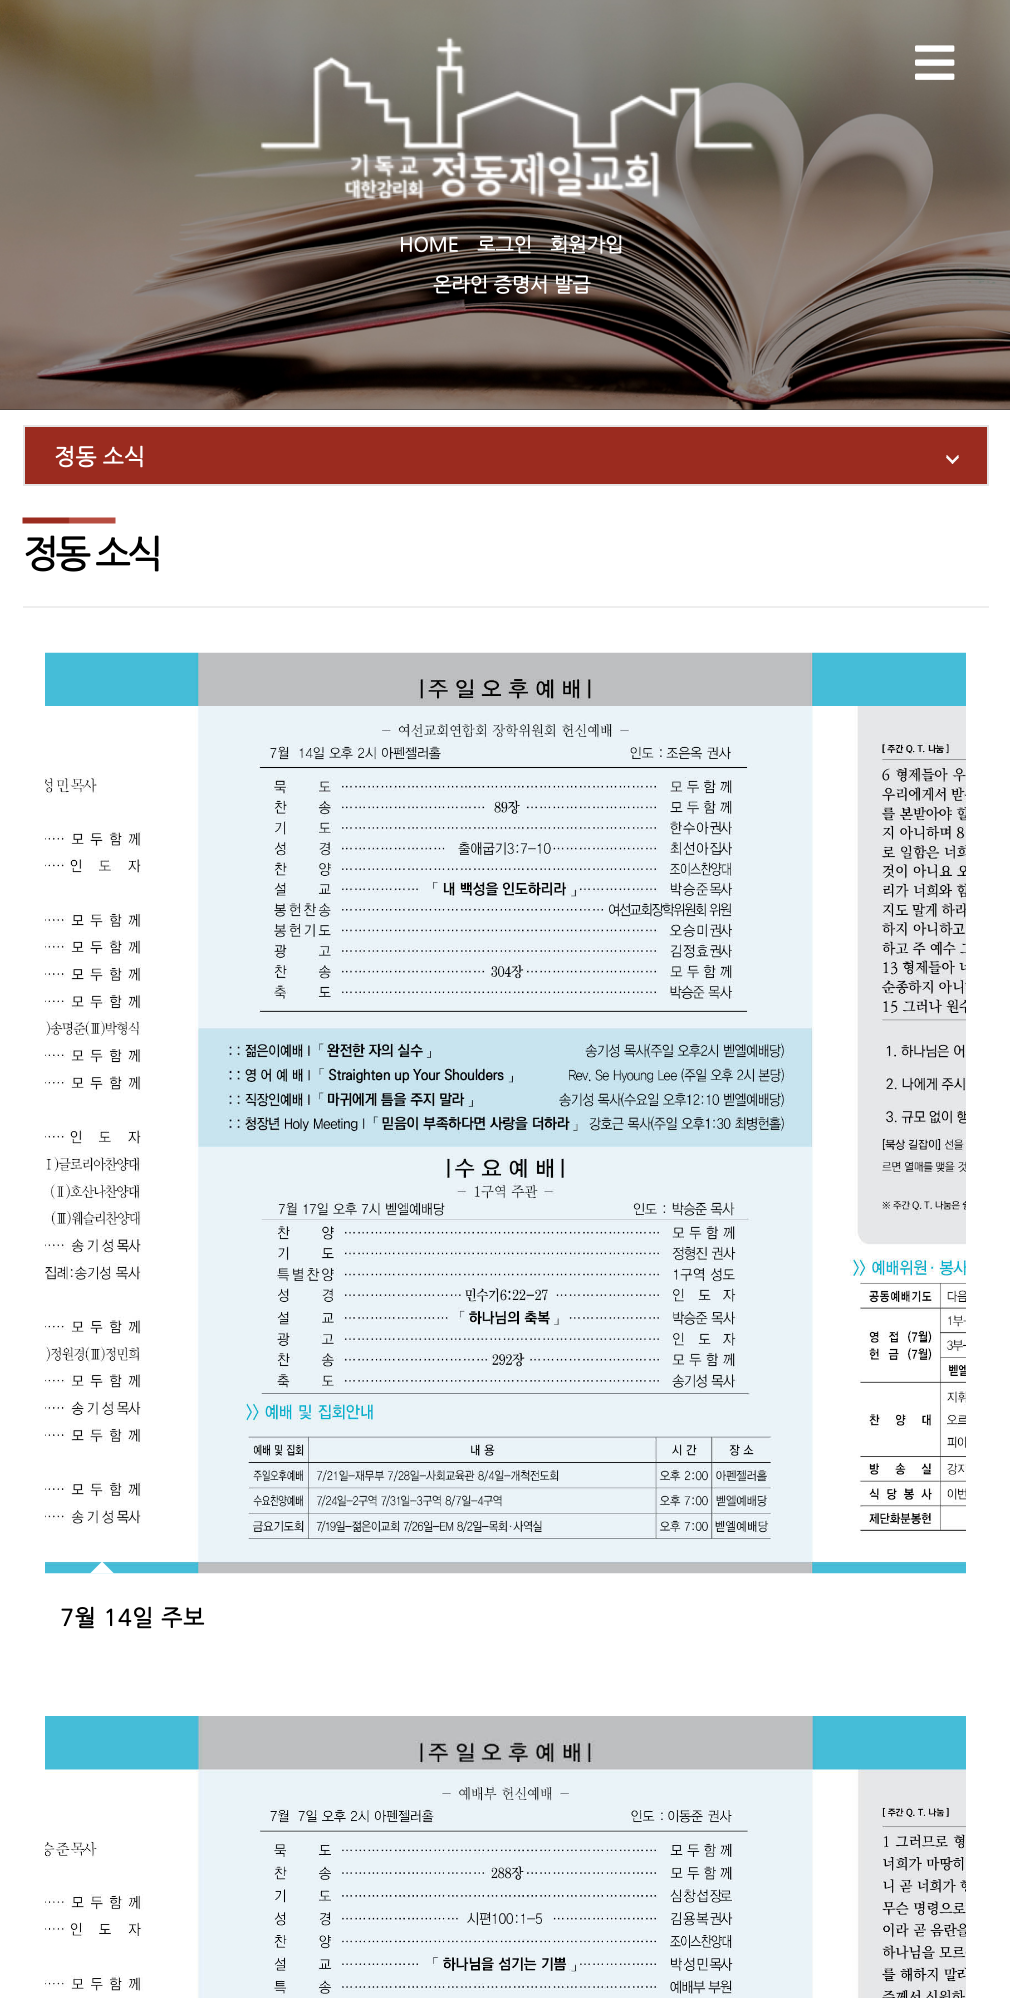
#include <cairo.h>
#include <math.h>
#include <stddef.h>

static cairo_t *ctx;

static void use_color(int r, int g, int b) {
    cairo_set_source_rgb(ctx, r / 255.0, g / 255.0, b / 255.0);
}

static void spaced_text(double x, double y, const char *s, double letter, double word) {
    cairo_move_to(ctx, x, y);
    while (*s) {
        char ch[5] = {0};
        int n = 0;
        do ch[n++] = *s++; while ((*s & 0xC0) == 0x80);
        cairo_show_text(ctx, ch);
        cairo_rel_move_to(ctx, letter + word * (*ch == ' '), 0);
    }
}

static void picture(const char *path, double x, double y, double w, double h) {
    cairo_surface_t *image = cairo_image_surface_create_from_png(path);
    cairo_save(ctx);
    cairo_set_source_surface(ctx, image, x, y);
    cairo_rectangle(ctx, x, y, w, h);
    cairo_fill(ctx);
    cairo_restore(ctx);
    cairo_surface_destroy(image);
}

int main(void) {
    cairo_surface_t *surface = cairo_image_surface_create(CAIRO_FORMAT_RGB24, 1010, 1998);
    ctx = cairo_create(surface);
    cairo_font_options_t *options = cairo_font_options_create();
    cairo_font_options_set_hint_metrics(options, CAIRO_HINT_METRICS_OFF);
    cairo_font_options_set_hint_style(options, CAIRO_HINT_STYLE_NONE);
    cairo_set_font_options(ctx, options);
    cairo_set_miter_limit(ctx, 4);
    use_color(255, 255, 255);
    cairo_paint(ctx);
    use_color(51, 51, 51);
    cairo_rectangle(ctx, 0, 409, 1010, 1);
    cairo_fill(ctx);
    picture("img1.png", 0, 0, 1010, 410);
    picture("img2.png", 260, 37, 496, 164);
    picture("img3.png", 915, 45, 40, 35);
    cairo_select_font_face(ctx, "NanumGothic", CAIRO_FONT_SLANT_NORMAL, CAIRO_FONT_WEIGHT_BOLD);
    cairo_set_font_size(ctx, 19.5);
    use_color(255, 255, 255);
    cairo_move_to(ctx, 399, 251);
    cairo_show_text(ctx, "HOME");
    cairo_move_to(ctx, 477, 251);
    cairo_show_text(ctx, "로그인");
    cairo_move_to(ctx, 550, 251);
    cairo_show_text(ctx, "회원가입");
    cairo_move_to(ctx, 433, 291);
    cairo_show_text(ctx, "온라인 증명서 발급");
    use_color(155, 43, 31);
    cairo_rectangle(ctx, 24, 426, 964, 59);
    cairo_fill_preserve(ctx);
    use_color(229, 229, 229);
    cairo_stroke(ctx);
    cairo_set_font_size(ctx, 22.5);
    use_color(255, 255, 255);
    cairo_move_to(ctx, 54, 464);
    cairo_show_text(ctx, "정동 소식");
    cairo_new_path(ctx);
    cairo_move_to(ctx, 952.5, 464);
    cairo_line_to(ctx, 946, 457.5);
    cairo_line_to(ctx, 947, 456.5);
    cairo_line_to(ctx, 953.5, 463);
    cairo_close_path(ctx);
    cairo_fill(ctx);
    cairo_new_path(ctx);
    cairo_move_to(ctx, 952.5, 464);
    cairo_line_to(ctx, 951.5, 463);
    cairo_line_to(ctx, 958, 456.5);
    cairo_line_to(ctx, 959, 457.5);
    cairo_close_path(ctx);
    cairo_fill(ctx);
    cairo_new_path(ctx);
    cairo_move_to(ctx, 952.5, 462.5);
    cairo_line_to(ctx, 946, 456);
    cairo_line_to(ctx, 947, 455);
    cairo_line_to(ctx, 953.5, 461.5);
    cairo_close_path(ctx);
    cairo_fill(ctx);
    cairo_new_path(ctx);
    cairo_move_to(ctx, 952.5, 462.5);
    cairo_line_to(ctx, 951.5, 461.5);
    cairo_line_to(ctx, 958, 455);
    cairo_line_to(ctx, 959, 456);
    cairo_close_path(ctx);
    cairo_fill(ctx);
    picture("img4.png", 22, 516, 94, 8);
    cairo_set_font_size(ctx, 37.5);
    use_color(0, 0, 0);
    spaced_text(23, 566, "정동 소식", -3, 0);
    use_color(238, 238, 238);
    cairo_rectangle(ctx, 23, 606, 966, 2);
    cairo_fill(ctx);
    picture("img5.png", 45, 652, 921, 922);
    use_color(255, 255, 255);
    cairo_new_path(ctx);
    cairo_move_to(ctx, 114, 1573.5);
    cairo_line_to(ctx, 90, 1573.5);
    cairo_line_to(ctx, 102, 1561.5);
    cairo_close_path(ctx);
    cairo_fill(ctx);
    cairo_set_font_size(ctx, 22.5);
    use_color(0, 0, 0);
    spaced_text(60, 1625, "7월 14일 주보", 0.75, 0);
    picture("img6.png", 45, 1716, 921, 282);
    cairo_surface_write_to_png(surface, "result.png");
    cairo_font_options_destroy(options);
    cairo_destroy(ctx);
    cairo_surface_destroy(surface);
    return 0;
}
